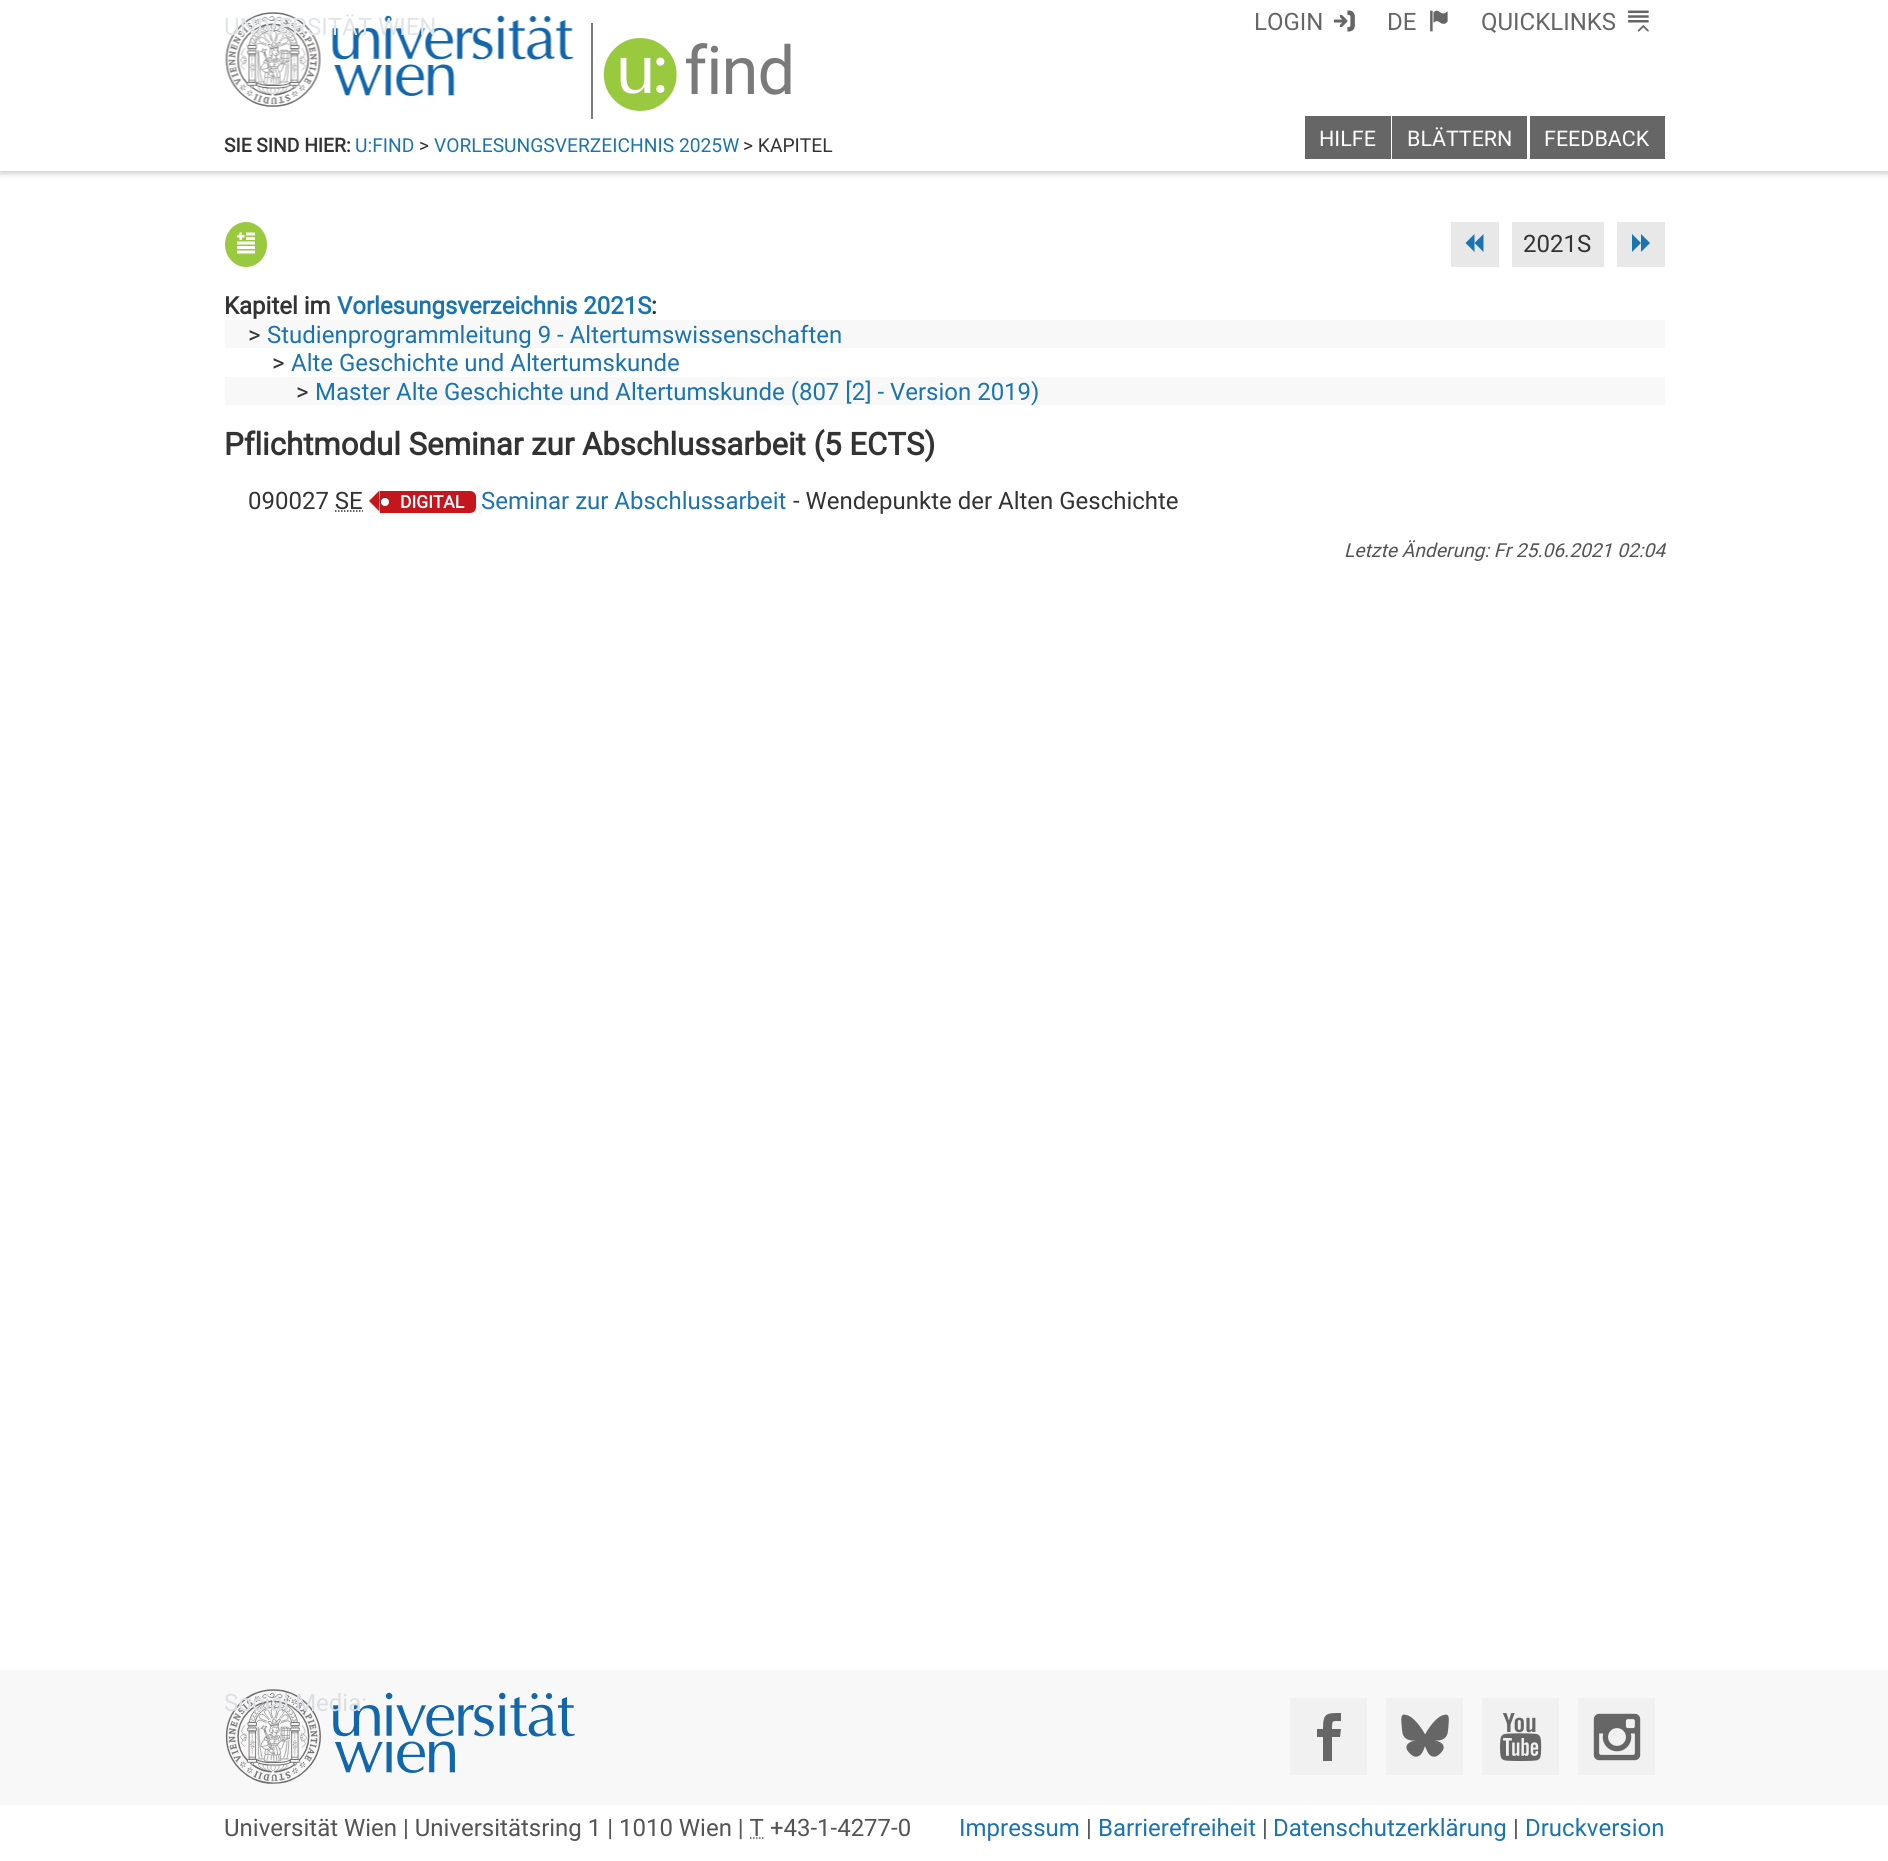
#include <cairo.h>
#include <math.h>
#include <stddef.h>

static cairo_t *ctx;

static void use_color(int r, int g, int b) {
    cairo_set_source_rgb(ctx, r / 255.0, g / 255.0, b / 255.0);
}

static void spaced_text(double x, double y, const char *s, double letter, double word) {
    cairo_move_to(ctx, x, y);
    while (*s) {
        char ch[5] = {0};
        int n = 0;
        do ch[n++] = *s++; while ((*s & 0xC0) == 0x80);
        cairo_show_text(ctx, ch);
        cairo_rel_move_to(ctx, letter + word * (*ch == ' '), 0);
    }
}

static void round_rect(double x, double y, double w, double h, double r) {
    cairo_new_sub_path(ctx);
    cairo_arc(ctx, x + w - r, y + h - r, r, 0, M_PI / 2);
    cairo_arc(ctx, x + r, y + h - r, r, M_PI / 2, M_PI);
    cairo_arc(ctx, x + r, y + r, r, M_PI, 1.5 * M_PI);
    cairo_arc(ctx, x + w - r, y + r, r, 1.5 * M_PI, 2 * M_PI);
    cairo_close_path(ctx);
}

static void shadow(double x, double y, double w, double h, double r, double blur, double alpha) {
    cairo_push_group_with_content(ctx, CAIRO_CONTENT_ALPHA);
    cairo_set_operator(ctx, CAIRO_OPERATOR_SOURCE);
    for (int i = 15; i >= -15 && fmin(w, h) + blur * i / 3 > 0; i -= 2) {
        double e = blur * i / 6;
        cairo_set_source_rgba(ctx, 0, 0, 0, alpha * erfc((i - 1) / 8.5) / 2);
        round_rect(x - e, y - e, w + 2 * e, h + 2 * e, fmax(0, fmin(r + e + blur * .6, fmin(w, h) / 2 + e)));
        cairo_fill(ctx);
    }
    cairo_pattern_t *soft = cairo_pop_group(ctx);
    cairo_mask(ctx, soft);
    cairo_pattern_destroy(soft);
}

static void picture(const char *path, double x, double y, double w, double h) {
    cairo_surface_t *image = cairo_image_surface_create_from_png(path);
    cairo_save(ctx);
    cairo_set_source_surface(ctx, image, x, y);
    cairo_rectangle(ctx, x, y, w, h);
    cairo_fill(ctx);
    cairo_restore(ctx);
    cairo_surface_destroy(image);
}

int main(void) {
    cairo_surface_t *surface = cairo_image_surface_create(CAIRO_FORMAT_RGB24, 1888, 1861);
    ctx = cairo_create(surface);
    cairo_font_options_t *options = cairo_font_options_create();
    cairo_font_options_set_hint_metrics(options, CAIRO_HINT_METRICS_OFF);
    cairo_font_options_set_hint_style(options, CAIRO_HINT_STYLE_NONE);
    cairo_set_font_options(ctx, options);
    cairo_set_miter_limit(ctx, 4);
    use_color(255, 255, 255);
    cairo_paint(ctx);
    use_color(0, 0, 0);
    shadow(0, 3, 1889, 171, 0, 2.5, 0.18);
    use_color(255, 255, 255);
    cairo_rectangle(ctx, 0, 0, 1888, 171);
    cairo_fill(ctx);
    picture("img1.png", 225, 12, 349, 95);
    cairo_select_font_face(ctx, "Roboto", CAIRO_FONT_SLANT_NORMAL, CAIRO_FONT_WEIGHT_NORMAL);
    cairo_set_font_size(ctx, 24);
    use_color(224, 229, 234);
    cairo_move_to(ctx, 224, 35);
    cairo_show_text(ctx, "UNIVERSITÄT WIEN");
    use_color(122, 122, 122);
    cairo_rectangle(ctx, 591, 23, 2, 96);
    cairo_fill(ctx);
    picture("img2.png", 603, 38, 74, 73);
    cairo_set_font_size(ctx, 67);
    spaced_text(684, 94, "find", -1, 0);
    cairo_set_font_size(ctx, 24);
    use_color(102, 102, 102);
    cairo_move_to(ctx, 1254, 30);
    cairo_show_text(ctx, "LOGIN");
    picture("img3.png", 1333, 10, 22, 22);
    cairo_move_to(ctx, 1387, 30);
    cairo_show_text(ctx, "DE");
    picture("img4.png", 1430, 10, 18, 22);
    cairo_move_to(ctx, 1481, 30);
    cairo_show_text(ctx, "QUICKLINKS");
    picture("img5.png", 1628, 10, 21, 22);
    cairo_rectangle(ctx, 1305, 116, 86, 43);
    cairo_fill(ctx);
    cairo_set_font_size(ctx, 21.5);
    use_color(255, 255, 255);
    cairo_move_to(ctx, 1319, 146);
    cairo_show_text(ctx, "HILFE");
    use_color(102, 102, 102);
    cairo_rectangle(ctx, 1392, 116, 135, 43);
    cairo_fill(ctx);
    use_color(255, 255, 255);
    cairo_move_to(ctx, 1407, 146);
    cairo_show_text(ctx, "BLÄTTERN");
    use_color(102, 102, 102);
    cairo_rectangle(ctx, 1530, 116, 135, 43);
    cairo_fill(ctx);
    use_color(255, 255, 255);
    cairo_move_to(ctx, 1544, 146);
    cairo_show_text(ctx, "FEEDBACK");
    cairo_select_font_face(ctx, "Roboto", CAIRO_FONT_SLANT_NORMAL, CAIRO_FONT_WEIGHT_BOLD);
    cairo_set_font_size(ctx, 19.25);
    use_color(51, 51, 51);
    cairo_move_to(ctx, 224, 152);
    cairo_show_text(ctx, "SIE SIND HIER:");
    cairo_select_font_face(ctx, "Roboto", CAIRO_FONT_SLANT_NORMAL, CAIRO_FONT_WEIGHT_NORMAL);
    use_color(26, 116, 176);
    cairo_move_to(ctx, 355, 152);
    cairo_show_text(ctx, "U:FIND");
    use_color(51, 51, 51);
    cairo_move_to(ctx, 419, 152);
    cairo_show_text(ctx, ">");
    use_color(26, 116, 176);
    cairo_move_to(ctx, 434, 152);
    cairo_show_text(ctx, "VORLESUNGSVERZEICHNIS 2025W");
    use_color(51, 51, 51);
    cairo_move_to(ctx, 743, 152);
    cairo_show_text(ctx, "> KAPITEL");
    use_color(153, 201, 62);
    cairo_new_path(ctx);
    cairo_move_to(ctx, 246, 222);
    cairo_curve_to(ctx, 257.5, 222, 267, 232, 267, 244.5);
    cairo_curve_to(ctx, 267, 257, 257.5, 267, 246, 267);
    cairo_curve_to(ctx, 234.5, 267, 225, 257, 225, 244.5);
    cairo_curve_to(ctx, 225, 232, 234.5, 222, 246, 222);
    cairo_close_path(ctx);
    cairo_fill(ctx);
    picture("img6.png", 237, 232, 18, 22);
    use_color(232, 232, 232);
    cairo_rectangle(ctx, 1451, 222, 48, 45);
    cairo_fill(ctx);
    use_color(26, 116, 176);
    cairo_new_path(ctx);
    cairo_move_to(ctx, 1474.5, 234);
    cairo_line_to(ctx, 1474.5, 252);
    cairo_line_to(ctx, 1465.5, 243);
    cairo_close_path(ctx);
    cairo_move_to(ctx, 1483.5, 234);
    cairo_line_to(ctx, 1483.5, 252);
    cairo_line_to(ctx, 1474.5, 243);
    cairo_close_path(ctx);
    cairo_fill(ctx);
    use_color(232, 232, 232);
    cairo_rectangle(ctx, 1512, 222, 92, 45);
    cairo_fill(ctx);
    cairo_set_font_size(ctx, 24);
    use_color(51, 51, 51);
    cairo_move_to(ctx, 1523, 252);
    cairo_show_text(ctx, "2021S");
    use_color(232, 232, 232);
    cairo_rectangle(ctx, 1617, 222, 48, 45);
    cairo_fill(ctx);
    use_color(26, 116, 176);
    cairo_new_path(ctx);
    cairo_move_to(ctx, 1632, 234);
    cairo_line_to(ctx, 1641, 243);
    cairo_line_to(ctx, 1632, 252);
    cairo_close_path(ctx);
    cairo_move_to(ctx, 1641, 234);
    cairo_line_to(ctx, 1650, 243);
    cairo_line_to(ctx, 1641, 252);
    cairo_close_path(ctx);
    cairo_fill(ctx);
    cairo_select_font_face(ctx, "Roboto", CAIRO_FONT_SLANT_NORMAL, CAIRO_FONT_WEIGHT_BOLD);
    use_color(51, 51, 51);
    cairo_move_to(ctx, 224, 314);
    cairo_show_text(ctx, "Kapitel im");
    use_color(26, 116, 176);
    cairo_move_to(ctx, 337, 314);
    cairo_show_text(ctx, "Vorlesungsverzeichnis 2021S");
    use_color(51, 51, 51);
    cairo_move_to(ctx, 651, 314);
    cairo_show_text(ctx, ":");
    use_color(248, 248, 248);
    cairo_rectangle(ctx, 225, 320, 1440, 28);
    cairo_fill(ctx);
    cairo_select_font_face(ctx, "Roboto", CAIRO_FONT_SLANT_NORMAL, CAIRO_FONT_WEIGHT_NORMAL);
    use_color(51, 51, 51);
    cairo_move_to(ctx, 248, 343);
    cairo_show_text(ctx, ">");
    use_color(26, 116, 176);
    cairo_move_to(ctx, 267, 343);
    cairo_show_text(ctx, "Studienprogrammleitung 9 - Altertumswissenschaften");
    use_color(51, 51, 51);
    cairo_move_to(ctx, 272, 371);
    cairo_show_text(ctx, ">");
    use_color(26, 116, 176);
    cairo_move_to(ctx, 291, 371);
    cairo_show_text(ctx, "Alte Geschichte und Altertumskunde");
    use_color(248, 248, 248);
    cairo_rectangle(ctx, 225, 377, 1440, 28);
    cairo_fill(ctx);
    use_color(51, 51, 51);
    cairo_move_to(ctx, 296, 400);
    cairo_show_text(ctx, ">");
    use_color(26, 116, 176);
    cairo_move_to(ctx, 315, 400);
    cairo_show_text(ctx, "Master Alte Geschichte und Altertumskunde (807 [2] - Version 2019)");
    cairo_select_font_face(ctx, "Roboto", CAIRO_FONT_SLANT_NORMAL, CAIRO_FONT_WEIGHT_BOLD);
    cairo_set_font_size(ctx, 31.2);
    use_color(51, 51, 51);
    cairo_move_to(ctx, 224, 455);
    cairo_show_text(ctx, "Pflichtmodul Seminar zur Abschlussarbeit (5 ECTS)");
    cairo_select_font_face(ctx, "Roboto", CAIRO_FONT_SLANT_NORMAL, CAIRO_FONT_WEIGHT_NORMAL);
    cairo_set_font_size(ctx, 24);
    cairo_move_to(ctx, 248, 509);
    cairo_show_text(ctx, "090027 SE");
    use_color(248, 248, 248);
    cairo_rectangle(ctx, 369, 491, 107, 22);
    cairo_fill(ctx);
    cairo_rectangle(ctx, 476, 486, 6, 29);
    cairo_fill(ctx);
    use_color(196, 22, 28);
    cairo_new_path(ctx);
    cairo_move_to(ctx, 379.5, 490.5);
    cairo_line_to(ctx, 379.5, 511.5);
    cairo_line_to(ctx, 369, 501);
    cairo_close_path(ctx);
    cairo_fill(ctx);
    cairo_new_path(ctx);
    cairo_move_to(ctx, 380, 491);
    cairo_line_to(ctx, 470, 491);
    cairo_curve_to(ctx, 473.5, 491, 476, 493.5, 476, 497);
    cairo_line_to(ctx, 476, 507);
    cairo_curve_to(ctx, 476, 510.5, 473.5, 513, 470, 513);
    cairo_line_to(ctx, 380, 513);
    cairo_close_path(ctx);
    cairo_fill(ctx);
    use_color(114, 50, 48);
    shadow(380, 497, 7, 7, 3.5, 2, 1);
    use_color(255, 255, 255);
    cairo_arc(ctx, 385, 502, 4, 0, 2 * M_PI);
    cairo_fill(ctx);
    cairo_select_font_face(ctx, "Roboto", CAIRO_FONT_SLANT_NORMAL, CAIRO_FONT_WEIGHT_BOLD);
    cairo_set_font_size(ctx, 17.5);
    cairo_move_to(ctx, 400, 508);
    cairo_show_text(ctx, "DIGITAL");
    cairo_select_font_face(ctx, "Roboto", CAIRO_FONT_SLANT_NORMAL, CAIRO_FONT_WEIGHT_NORMAL);
    cairo_set_font_size(ctx, 24);
    use_color(26, 116, 176);
    cairo_move_to(ctx, 481, 509);
    cairo_show_text(ctx, "Seminar zur Abschlussarbeit");
    use_color(51, 51, 51);
    cairo_move_to(ctx, 793, 509);
    cairo_show_text(ctx, "- Wendepunkte der Alten Geschichte");
    cairo_new_path(ctx);
    cairo_move_to(ctx, 335, 511);
    cairo_line_to(ctx, 363, 511);
    cairo_set_line_width(ctx, 1.5);
    cairo_set_dash(ctx, (double[]){1.5, 1.5}, 2, 0);
    cairo_stroke(ctx);
    cairo_select_font_face(ctx, "Roboto", CAIRO_FONT_SLANT_ITALIC, CAIRO_FONT_WEIGHT_NORMAL);
    cairo_set_font_size(ctx, 19.25);
    use_color(84, 84, 84);
    cairo_move_to(ctx, 1344, 557);
    cairo_show_text(ctx, "Letzte Änderung: Fr 25.06.2021 02:04");
    use_color(248, 248, 248);
    cairo_rectangle(ctx, 0, 1670, 1888, 135);
    cairo_fill(ctx);
    picture("img7.png", 225, 1689, 350, 95);
    cairo_select_font_face(ctx, "Roboto", CAIRO_FONT_SLANT_NORMAL, CAIRO_FONT_WEIGHT_NORMAL);
    cairo_set_font_size(ctx, 24);
    use_color(220, 223, 225);
    cairo_move_to(ctx, 224, 1711);
    cairo_show_text(ctx, "Social Media:");
    use_color(241, 241, 241);
    cairo_rectangle(ctx, 1290, 1698, 77, 77);
    cairo_fill(ctx);
    use_color(102, 102, 102);
    cairo_new_path(ctx);
    cairo_move_to(ctx, 1332, 1729);
    cairo_curve_to(ctx, 1332, 1720, 1332, 1721, 1341, 1721);
    cairo_line_to(ctx, 1341, 1713);
    cairo_curve_to(ctx, 1326, 1713, 1323, 1713, 1323, 1729);
    cairo_line_to(ctx, 1317, 1729);
    cairo_line_to(ctx, 1317, 1737);
    cairo_line_to(ctx, 1323, 1737);
    cairo_line_to(ctx, 1323, 1761);
    cairo_line_to(ctx, 1332, 1761);
    cairo_line_to(ctx, 1332, 1737);
    cairo_line_to(ctx, 1340, 1737);
    cairo_line_to(ctx, 1341, 1729);
    cairo_close_path(ctx);
    cairo_fill(ctx);
    use_color(241, 241, 241);
    cairo_rectangle(ctx, 1386, 1698, 77, 77);
    cairo_fill(ctx);
    picture("img8.png", 1401, 1714, 48, 43);
    cairo_rectangle(ctx, 1482, 1698, 77, 77);
    cairo_fill(ctx);
    picture("img9.png", 1500, 1713, 42, 48);
    cairo_rectangle(ctx, 1578, 1698, 77, 77);
    cairo_fill(ctx);
    picture("img10.png", 1593, 1713, 48, 48);
    use_color(84, 84, 84);
    cairo_move_to(ctx, 224, 1836);
    cairo_show_text(ctx, "Universität Wien | Universitätsring 1 | 1010 Wien | T +43-1-4277-0");
    cairo_new_path(ctx);
    cairo_move_to(ctx, 750, 1838);
    cairo_line_to(ctx, 764, 1838);
    cairo_stroke(ctx);
    use_color(26, 116, 176);
    cairo_move_to(ctx, 959, 1836);
    cairo_show_text(ctx, "Impressum");
    use_color(84, 84, 84);
    cairo_move_to(ctx, 1086, 1836);
    cairo_show_text(ctx, "|");
    use_color(26, 116, 176);
    cairo_move_to(ctx, 1098, 1836);
    cairo_show_text(ctx, "Barrierefreiheit");
    use_color(84, 84, 84);
    cairo_move_to(ctx, 1262, 1836);
    cairo_show_text(ctx, "|");
    use_color(26, 116, 176);
    cairo_move_to(ctx, 1273, 1836);
    cairo_show_text(ctx, "Datenschutzerklärung");
    use_color(84, 84, 84);
    cairo_move_to(ctx, 1513, 1836);
    cairo_show_text(ctx, "|");
    use_color(26, 116, 176);
    cairo_move_to(ctx, 1525, 1836);
    cairo_show_text(ctx, "Druckversion");
    cairo_surface_write_to_png(surface, "result.png");
    cairo_font_options_destroy(options);
    cairo_destroy(ctx);
    cairo_surface_destroy(surface);
    return 0;
}
